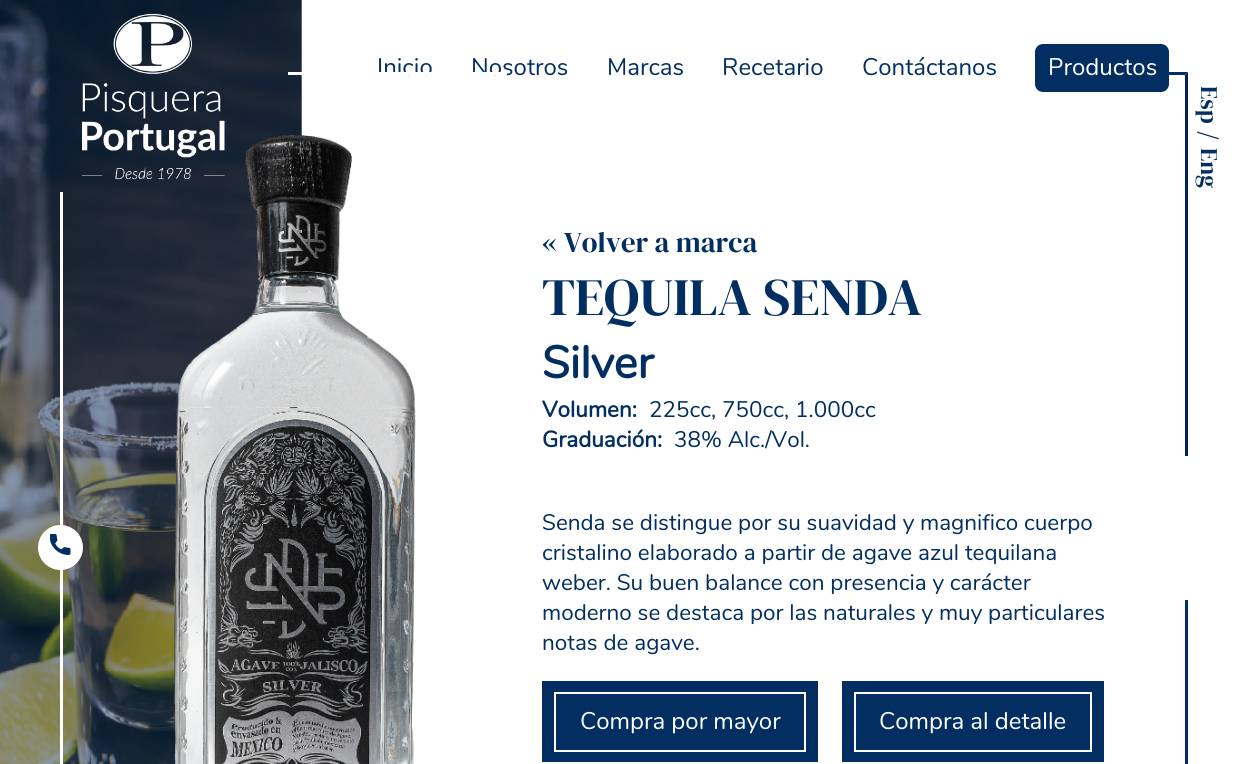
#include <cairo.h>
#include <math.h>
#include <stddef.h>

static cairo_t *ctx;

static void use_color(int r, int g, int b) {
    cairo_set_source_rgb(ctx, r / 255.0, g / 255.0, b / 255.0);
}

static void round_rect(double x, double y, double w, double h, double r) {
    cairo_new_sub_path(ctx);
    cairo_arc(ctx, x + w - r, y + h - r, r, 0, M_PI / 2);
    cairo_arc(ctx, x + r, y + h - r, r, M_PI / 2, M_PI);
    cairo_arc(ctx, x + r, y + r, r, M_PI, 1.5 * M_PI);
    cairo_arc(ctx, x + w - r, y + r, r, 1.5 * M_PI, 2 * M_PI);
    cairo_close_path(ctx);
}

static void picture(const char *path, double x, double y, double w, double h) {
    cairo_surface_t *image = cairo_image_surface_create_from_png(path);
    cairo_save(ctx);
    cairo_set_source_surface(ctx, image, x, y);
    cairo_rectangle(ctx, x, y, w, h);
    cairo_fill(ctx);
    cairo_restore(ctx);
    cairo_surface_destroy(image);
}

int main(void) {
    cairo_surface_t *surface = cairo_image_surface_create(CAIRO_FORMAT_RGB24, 1247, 764);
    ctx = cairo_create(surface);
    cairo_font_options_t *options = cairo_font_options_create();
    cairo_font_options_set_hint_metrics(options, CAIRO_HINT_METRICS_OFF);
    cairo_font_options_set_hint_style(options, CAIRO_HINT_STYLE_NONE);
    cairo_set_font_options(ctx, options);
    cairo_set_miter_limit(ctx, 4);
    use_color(255, 255, 255);
    cairo_paint(ctx);
    use_color(149, 167, 189);
    cairo_rectangle(ctx, 301, 0, 1, 136);
    cairo_fill(ctx);
    picture("img2.png", 0, 0, 302, 764);
    picture("img3.png", 174, 135, 242, 629);
    picture("img1.png", 81, 13, 144, 167);
    cairo_select_font_face(ctx, "Nunito", CAIRO_FONT_SLANT_NORMAL, CAIRO_FONT_WEIGHT_NORMAL);
    cairo_set_font_size(ctx, 24);
    use_color(2, 46, 97);
    cairo_move_to(ctx, 377, 75);
    cairo_show_text(ctx, "Inicio");
    cairo_move_to(ctx, 471, 75);
    cairo_show_text(ctx, "Nosotros");
    cairo_move_to(ctx, 607, 75);
    cairo_show_text(ctx, "Marcas");
    cairo_move_to(ctx, 722, 75);
    cairo_show_text(ctx, "Recetario");
    cairo_move_to(ctx, 862, 75);
    cairo_show_text(ctx, "Contáctanos");
    cairo_new_path(ctx);
    cairo_move_to(ctx, 1137, 72);
    cairo_line_to(ctx, 1188, 72);
    cairo_line_to(ctx, 1185, 75);
    cairo_line_to(ctx, 1137, 75);
    cairo_close_path(ctx);
    cairo_fill(ctx);
    round_rect(1035, 44, 134, 48, 8);
    cairo_fill(ctx);
    use_color(255, 255, 255);
    cairo_move_to(ctx, 1048, 75);
    cairo_show_text(ctx, "Productos");
    cairo_select_font_face(ctx, "DM Serif Display", CAIRO_FONT_SLANT_NORMAL, CAIRO_FONT_WEIGHT_NORMAL);
    use_color(2, 46, 97);
    cairo_save(ctx);
    cairo_translate(ctx, 1201, 86);
    cairo_rotate(ctx, 90 * M_PI / 180);
    cairo_move_to(ctx, 0, 0);
    cairo_show_text(ctx, "Esp");
    cairo_restore(ctx);
    cairo_select_font_face(ctx, "DM Serif Display", CAIRO_FONT_SLANT_NORMAL, CAIRO_FONT_WEIGHT_BOLD);
    cairo_save(ctx);
    cairo_translate(ctx, 1201, 131);
    cairo_rotate(ctx, 90 * M_PI / 180);
    cairo_move_to(ctx, 0, 0);
    cairo_show_text(ctx, "/");
    cairo_restore(ctx);
    cairo_select_font_face(ctx, "DM Serif Display", CAIRO_FONT_SLANT_NORMAL, CAIRO_FONT_WEIGHT_NORMAL);
    cairo_save(ctx);
    cairo_translate(ctx, 1201, 148);
    cairo_rotate(ctx, 90 * M_PI / 180);
    cairo_move_to(ctx, 0, 0);
    cairo_show_text(ctx, "Eng");
    cairo_restore(ctx);
    use_color(255, 255, 255);
    cairo_rectangle(ctx, 288, 72, 219, 3);
    cairo_fill(ctx);
    cairo_rectangle(ctx, 60, 192, 3, 572);
    cairo_fill(ctx);
    cairo_set_font_size(ctx, 28.75);
    use_color(2, 46, 97);
    cairo_move_to(ctx, 542, 252);
    cairo_show_text(ctx, "« Volver a marca");
    cairo_set_font_size(ctx, 52.5);
    cairo_move_to(ctx, 542, 315);
    cairo_show_text(ctx, "TEQUILA SENDA");
    cairo_select_font_face(ctx, "Nunito", CAIRO_FONT_SLANT_NORMAL, CAIRO_FONT_WEIGHT_BOLD);
    cairo_set_font_size(ctx, 45);
    cairo_move_to(ctx, 542, 378);
    cairo_show_text(ctx, "Silver");
    cairo_set_font_size(ctx, 22.5);
    cairo_move_to(ctx, 542, 417);
    cairo_show_text(ctx, "Volumen:");
    cairo_select_font_face(ctx, "Nunito", CAIRO_FONT_SLANT_NORMAL, CAIRO_FONT_WEIGHT_NORMAL);
    cairo_move_to(ctx, 649, 417);
    cairo_show_text(ctx, "225cc, 750cc, 1.000cc");
    cairo_select_font_face(ctx, "Nunito", CAIRO_FONT_SLANT_NORMAL, CAIRO_FONT_WEIGHT_BOLD);
    cairo_move_to(ctx, 542, 447);
    cairo_show_text(ctx, "Graduación:");
    cairo_select_font_face(ctx, "Nunito", CAIRO_FONT_SLANT_NORMAL, CAIRO_FONT_WEIGHT_NORMAL);
    cairo_move_to(ctx, 674, 447);
    cairo_show_text(ctx, "38% Alc./Vol.");
    cairo_move_to(ctx, 542, 530);
    cairo_show_text(ctx, "Senda se distingue por su suavidad y magnifico cuerpo");
    cairo_move_to(ctx, 542, 560);
    cairo_show_text(ctx, "cristalino elaborado a partir de agave azul tequilana");
    cairo_move_to(ctx, 542, 590);
    cairo_show_text(ctx, "weber. Su buen balance con presencia y carácter");
    cairo_move_to(ctx, 542, 620);
    cairo_show_text(ctx, "moderno se destaca por las naturales y muy particulares");
    cairo_move_to(ctx, 542, 650);
    cairo_show_text(ctx, "notas de agave.");
    cairo_rectangle(ctx, 542, 681, 276, 81);
    cairo_fill(ctx);
    cairo_rectangle(ctx, 555, 693, 250, 58);
    use_color(255, 255, 255);
    cairo_stroke(ctx);
    cairo_set_font_size(ctx, 24);
    cairo_move_to(ctx, 580, 729);
    cairo_show_text(ctx, "Compra por mayor");
    use_color(2, 46, 97);
    cairo_rectangle(ctx, 842, 681, 262, 81);
    cairo_fill(ctx);
    cairo_rectangle(ctx, 855, 693, 236, 58);
    use_color(255, 255, 255);
    cairo_stroke(ctx);
    cairo_move_to(ctx, 879, 729);
    cairo_show_text(ctx, "Compra al detalle");
    use_color(0, 33, 85);
    cairo_new_path(ctx);
    cairo_move_to(ctx, 1188, 72);
    cairo_line_to(ctx, 1188, 456);
    cairo_line_to(ctx, 1185, 456);
    cairo_line_to(ctx, 1185, 75);
    cairo_close_path(ctx);
    cairo_fill(ctx);
    use_color(255, 255, 255);
    cairo_arc(ctx, 60.5, 547.5, 22.5, 0, 2 * M_PI);
    cairo_fill(ctx);
    picture("img4.png", 50, 534, 21, 21);
    use_color(2, 46, 97);
    cairo_rectangle(ctx, 1185, 600, 3, 164);
    cairo_fill(ctx);
    cairo_surface_write_to_png(surface, "result.png");
    cairo_font_options_destroy(options);
    cairo_destroy(ctx);
    cairo_surface_destroy(surface);
    return 0;
}
